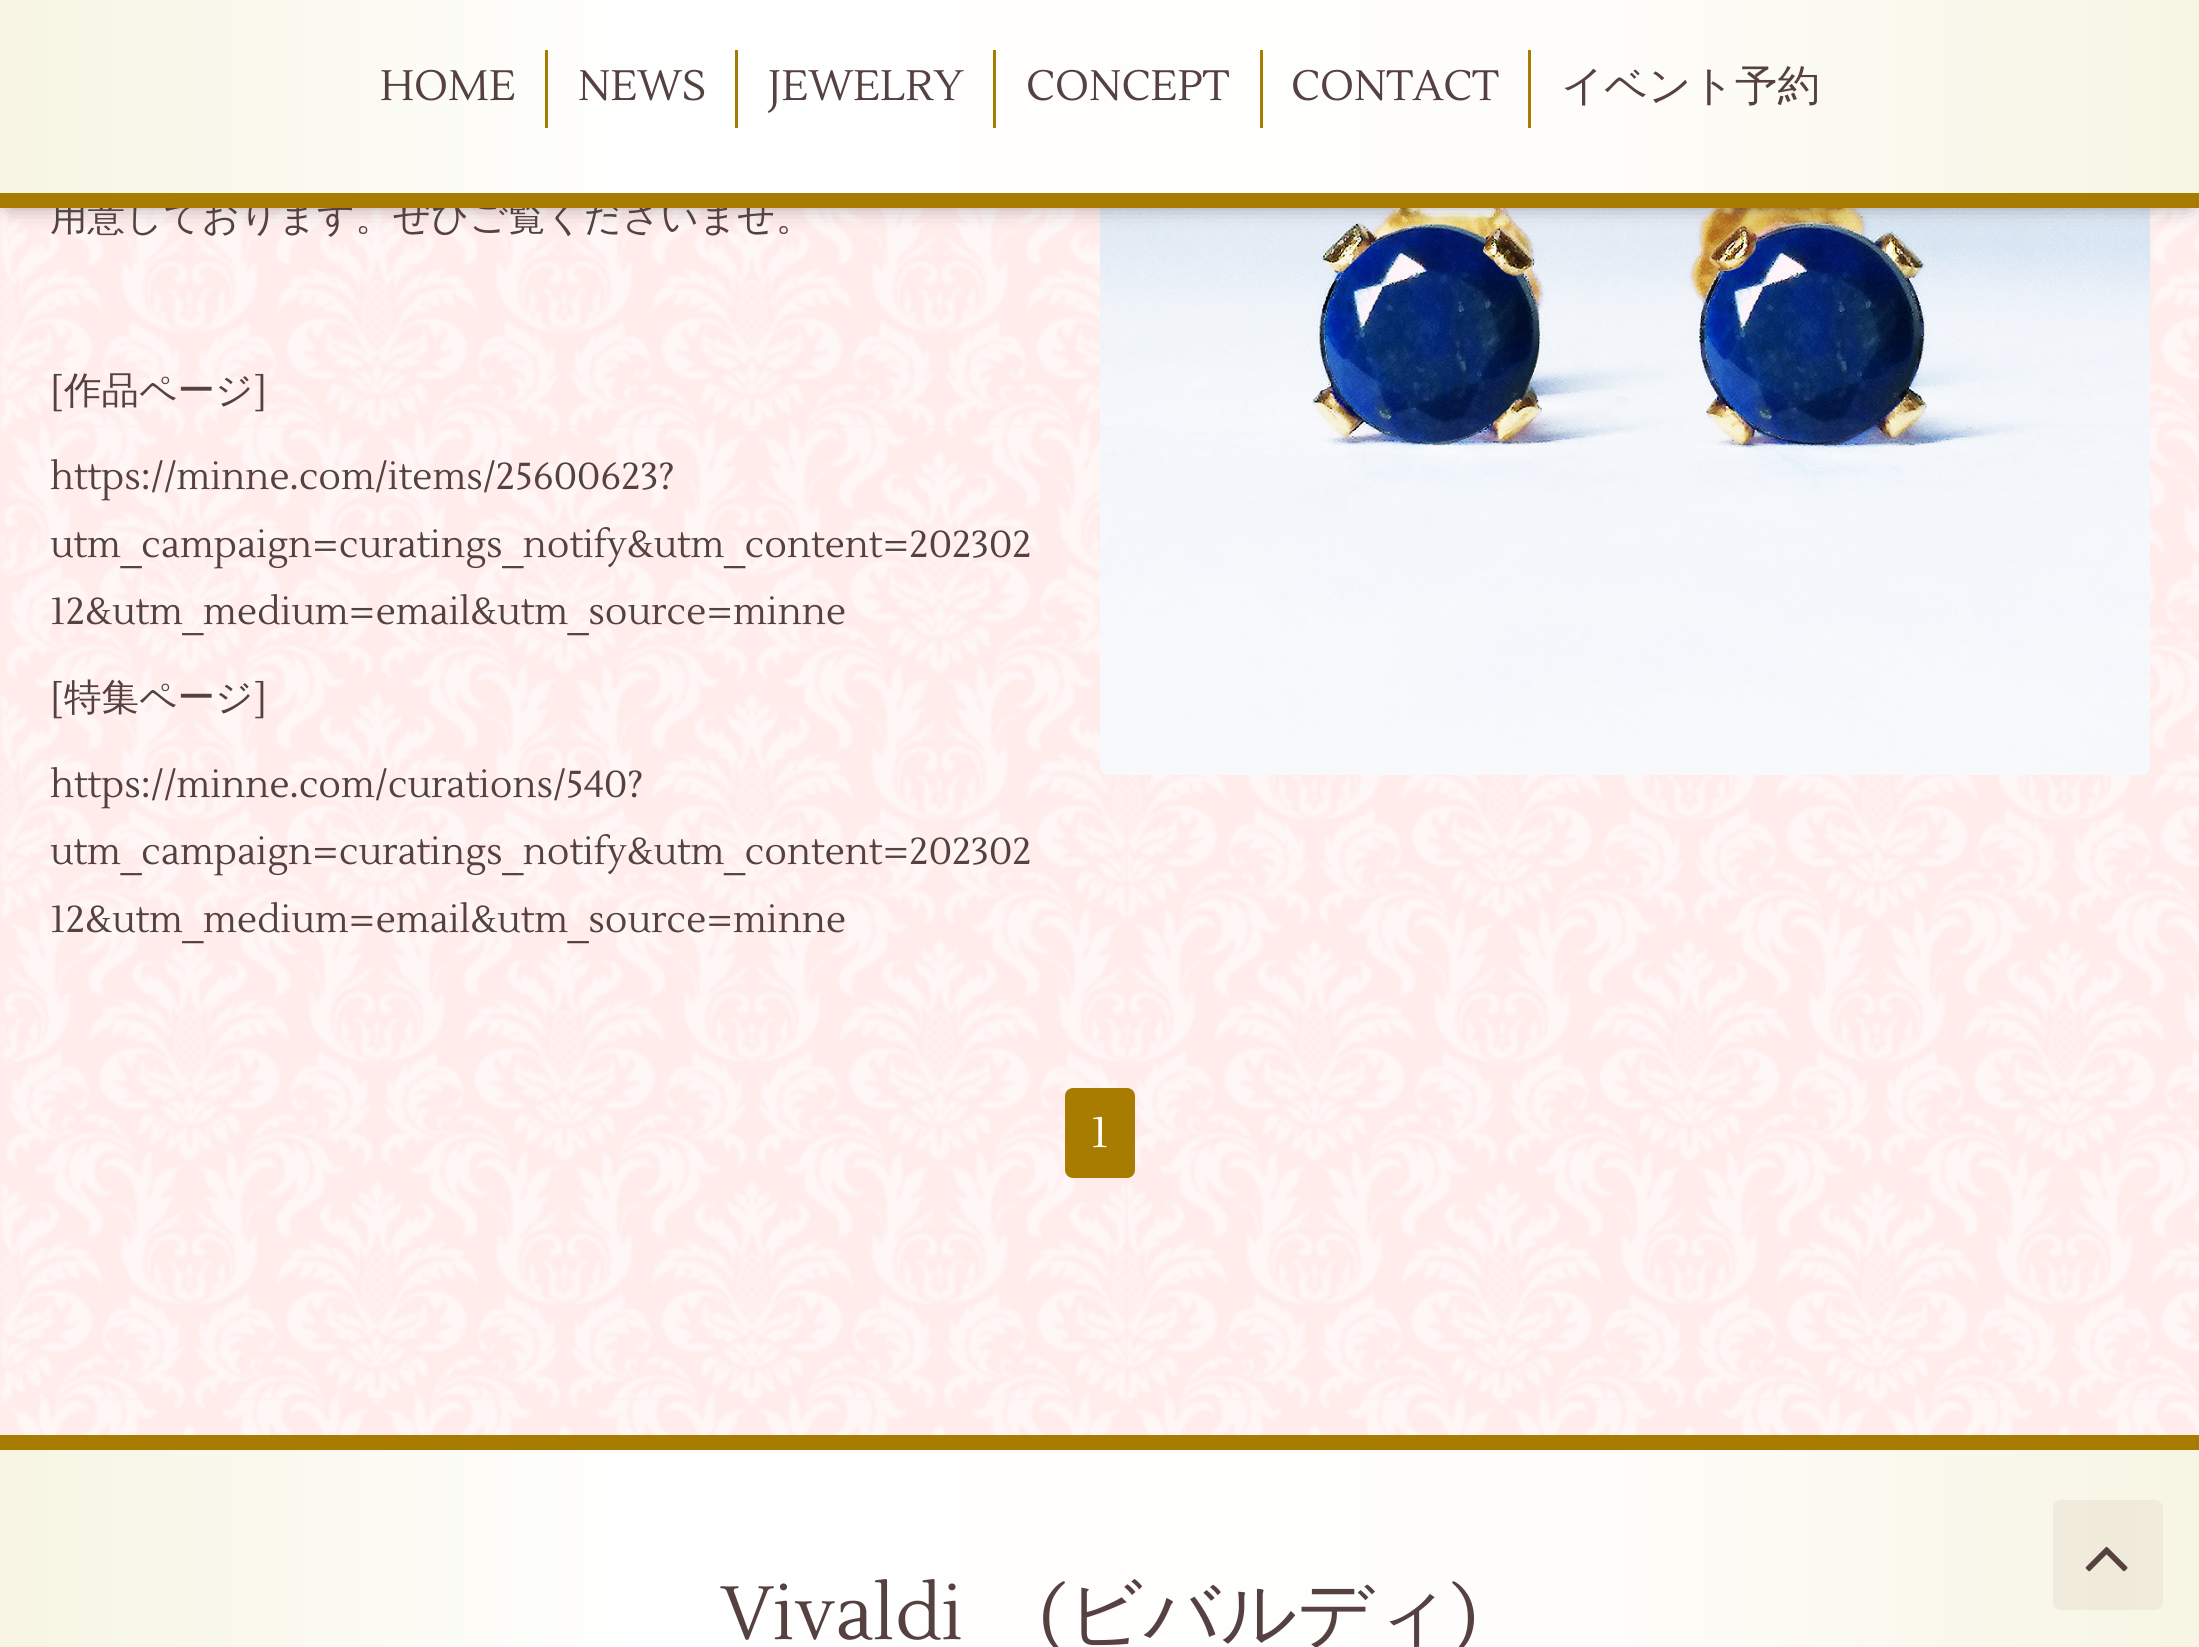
#include <cairo.h>
#include <math.h>
#include <stddef.h>

static cairo_t *ctx;

static void use_color(int r, int g, int b) {
    cairo_set_source_rgb(ctx, r / 255.0, g / 255.0, b / 255.0);
}

static void round_rect(double x, double y, double w, double h, double r) {
    cairo_new_sub_path(ctx);
    cairo_arc(ctx, x + w - r, y + h - r, r, 0, M_PI / 2);
    cairo_arc(ctx, x + r, y + h - r, r, M_PI / 2, M_PI);
    cairo_arc(ctx, x + r, y + r, r, M_PI, 1.5 * M_PI);
    cairo_arc(ctx, x + w - r, y + r, r, 1.5 * M_PI, 2 * M_PI);
    cairo_close_path(ctx);
}

static void shadow(double x, double y, double w, double h, double r, double blur, double alpha) {
    cairo_push_group_with_content(ctx, CAIRO_CONTENT_ALPHA);
    cairo_set_operator(ctx, CAIRO_OPERATOR_SOURCE);
    for (int i = 15; i >= -15 && fmin(w, h) + blur * i / 3 > 0; i -= 2) {
        double e = blur * i / 6;
        cairo_set_source_rgba(ctx, 0, 0, 0, alpha * erfc((i - 1) / 8.5) / 2);
        round_rect(x - e, y - e, w + 2 * e, h + 2 * e, fmax(0, fmin(r + e + blur * .6, fmin(w, h) / 2 + e)));
        cairo_fill(ctx);
    }
    cairo_pattern_t *soft = cairo_pop_group(ctx);
    cairo_mask(ctx, soft);
    cairo_pattern_destroy(soft);
}

static void picture(const char *path, double x, double y, double w, double h) {
    cairo_surface_t *image = cairo_image_surface_create_from_png(path);
    cairo_save(ctx);
    cairo_set_source_surface(ctx, image, x, y);
    cairo_rectangle(ctx, x, y, w, h);
    cairo_fill(ctx);
    cairo_restore(ctx);
    cairo_surface_destroy(image);
}

int main(void) {
    cairo_surface_t *surface = cairo_image_surface_create(CAIRO_FORMAT_RGB24, 2199, 1647);
    ctx = cairo_create(surface);
    cairo_font_options_t *options = cairo_font_options_create();
    cairo_font_options_set_hint_metrics(options, CAIRO_HINT_METRICS_OFF);
    cairo_font_options_set_hint_style(options, CAIRO_HINT_STYLE_NONE);
    cairo_set_font_options(ctx, options);
    cairo_set_miter_limit(ctx, 4);
    use_color(255, 236, 235);
    cairo_paint(ctx);
    picture("img1.png", 0, 208, 2199, 1227);
    picture("img3.png", 1100, 208, 1050, 567);
    use_color(0, 0, 0);
    shadow(10, 13, 2180, 187, 0, 12.5, 0.6);
    picture("img2.png", 0, 0, 2199, 193);
    cairo_select_font_face(ctx, "WenQuanYi Zen Hei Medium", CAIRO_FONT_SLANT_NORMAL, CAIRO_FONT_WEIGHT_NORMAL);
    cairo_set_font_size(ctx, 37.5);
    use_color(86, 65, 65);
    cairo_move_to(ctx, 50, 230);
    cairo_show_text(ctx, "用意しております。ぜひご覧くださいませ。");
    use_color(168, 124, 0);
    cairo_rectangle(ctx, 0, 193, 2199, 15);
    cairo_fill(ctx);
    cairo_select_font_face(ctx, "Lustria", CAIRO_FONT_SLANT_NORMAL, CAIRO_FONT_WEIGHT_NORMAL);
    cairo_set_font_size(ctx, 42.5);
    use_color(86, 65, 65);
    cairo_move_to(ctx, 380, 100);
    cairo_show_text(ctx, "HOME");
    use_color(168, 124, 0);
    cairo_rectangle(ctx, 545, 50, 3, 78);
    cairo_fill(ctx);
    use_color(86, 65, 65);
    cairo_move_to(ctx, 578, 100);
    cairo_show_text(ctx, "NEWS");
    use_color(168, 124, 0);
    cairo_rectangle(ctx, 735, 50, 3, 78);
    cairo_fill(ctx);
    use_color(86, 65, 65);
    cairo_move_to(ctx, 768, 100);
    cairo_show_text(ctx, "JEWELRY");
    use_color(168, 124, 0);
    cairo_rectangle(ctx, 993, 50, 3, 78);
    cairo_fill(ctx);
    use_color(86, 65, 65);
    cairo_move_to(ctx, 1026, 100);
    cairo_show_text(ctx, "CONCEPT");
    use_color(168, 124, 0);
    cairo_rectangle(ctx, 1260, 50, 3, 78);
    cairo_fill(ctx);
    use_color(86, 65, 65);
    cairo_move_to(ctx, 1291, 100);
    cairo_show_text(ctx, "CONTACT");
    use_color(168, 124, 0);
    cairo_rectangle(ctx, 1528, 50, 3, 78);
    cairo_fill(ctx);
    cairo_select_font_face(ctx, "WenQuanYi Zen Hei Medium", CAIRO_FONT_SLANT_NORMAL, CAIRO_FONT_WEIGHT_NORMAL);
    use_color(86, 65, 65);
    cairo_move_to(ctx, 1561, 100);
    cairo_show_text(ctx, "イベント予約");
    cairo_select_font_face(ctx, "Lustria", CAIRO_FONT_SLANT_NORMAL, CAIRO_FONT_WEIGHT_NORMAL);
    cairo_set_font_size(ctx, 37.5);
    cairo_move_to(ctx, 50, 403);
    cairo_show_text(ctx, "[");
    cairo_select_font_face(ctx, "WenQuanYi Zen Hei Medium", CAIRO_FONT_SLANT_NORMAL, CAIRO_FONT_WEIGHT_NORMAL);
    cairo_move_to(ctx, 64, 403);
    cairo_show_text(ctx, "作品ページ");
    cairo_select_font_face(ctx, "Lustria", CAIRO_FONT_SLANT_NORMAL, CAIRO_FONT_WEIGHT_NORMAL);
    cairo_move_to(ctx, 253, 403);
    cairo_show_text(ctx, "]");
    cairo_move_to(ctx, 50, 489);
    cairo_show_text(ctx, "https://minne.com/items/25600623?");
    cairo_move_to(ctx, 50, 557);
    cairo_show_text(ctx, "utm_campaign=curatings_notify&utm_content=202302");
    cairo_move_to(ctx, 50, 624);
    cairo_show_text(ctx, "12&utm_medium=email&utm_source=minne");
    cairo_move_to(ctx, 50, 710);
    cairo_show_text(ctx, "[");
    cairo_select_font_face(ctx, "WenQuanYi Zen Hei Medium", CAIRO_FONT_SLANT_NORMAL, CAIRO_FONT_WEIGHT_NORMAL);
    cairo_move_to(ctx, 64, 710);
    cairo_show_text(ctx, "特集ページ");
    cairo_select_font_face(ctx, "Lustria", CAIRO_FONT_SLANT_NORMAL, CAIRO_FONT_WEIGHT_NORMAL);
    cairo_move_to(ctx, 253, 710);
    cairo_show_text(ctx, "]");
    cairo_move_to(ctx, 50, 797);
    cairo_show_text(ctx, "https://minne.com/curations/540?");
    cairo_move_to(ctx, 50, 864);
    cairo_show_text(ctx, "utm_campaign=curatings_notify&utm_content=202302");
    cairo_move_to(ctx, 50, 932);
    cairo_show_text(ctx, "12&utm_medium=email&utm_source=minne");
    use_color(168, 124, 0);
    round_rect(1065, 1088, 70, 90, 8);
    cairo_fill(ctx);
    cairo_set_font_size(ctx, 42.5);
    use_color(255, 255, 255);
    cairo_move_to(ctx, 1091, 1147);
    cairo_show_text(ctx, "1");
    picture("img4.png", 0, 1450, 2199, 197);
    use_color(168, 124, 0);
    cairo_rectangle(ctx, 0, 1435, 2199, 15);
    cairo_fill(ctx);
    cairo_set_font_size(ctx, 75);
    use_color(86, 65, 65);
    cairo_move_to(ctx, 721, 1639);
    cairo_show_text(ctx, "Vivaldi");
    cairo_move_to(ctx, 1039, 1639);
    cairo_show_text(ctx, "(");
    cairo_select_font_face(ctx, "WenQuanYi Zen Hei Medium", CAIRO_FONT_SLANT_NORMAL, CAIRO_FONT_WEIGHT_NORMAL);
    cairo_move_to(ctx, 1067, 1639);
    cairo_show_text(ctx, "ビバルディ");
    cairo_select_font_face(ctx, "Lustria", CAIRO_FONT_SLANT_NORMAL, CAIRO_FONT_WEIGHT_NORMAL);
    cairo_move_to(ctx, 1450, 1639);
    cairo_show_text(ctx, ")");
    cairo_set_source_rgba(ctx, 0.929, 0.902, 0.839, 0.7);
    round_rect(2053, 1500, 110, 110, 8);
    cairo_fill(ctx);
    picture("img5.png", 2085, 1546, 43, 26);
    cairo_surface_write_to_png(surface, "result.png");
    cairo_font_options_destroy(options);
    cairo_destroy(ctx);
    cairo_surface_destroy(surface);
    return 0;
}
